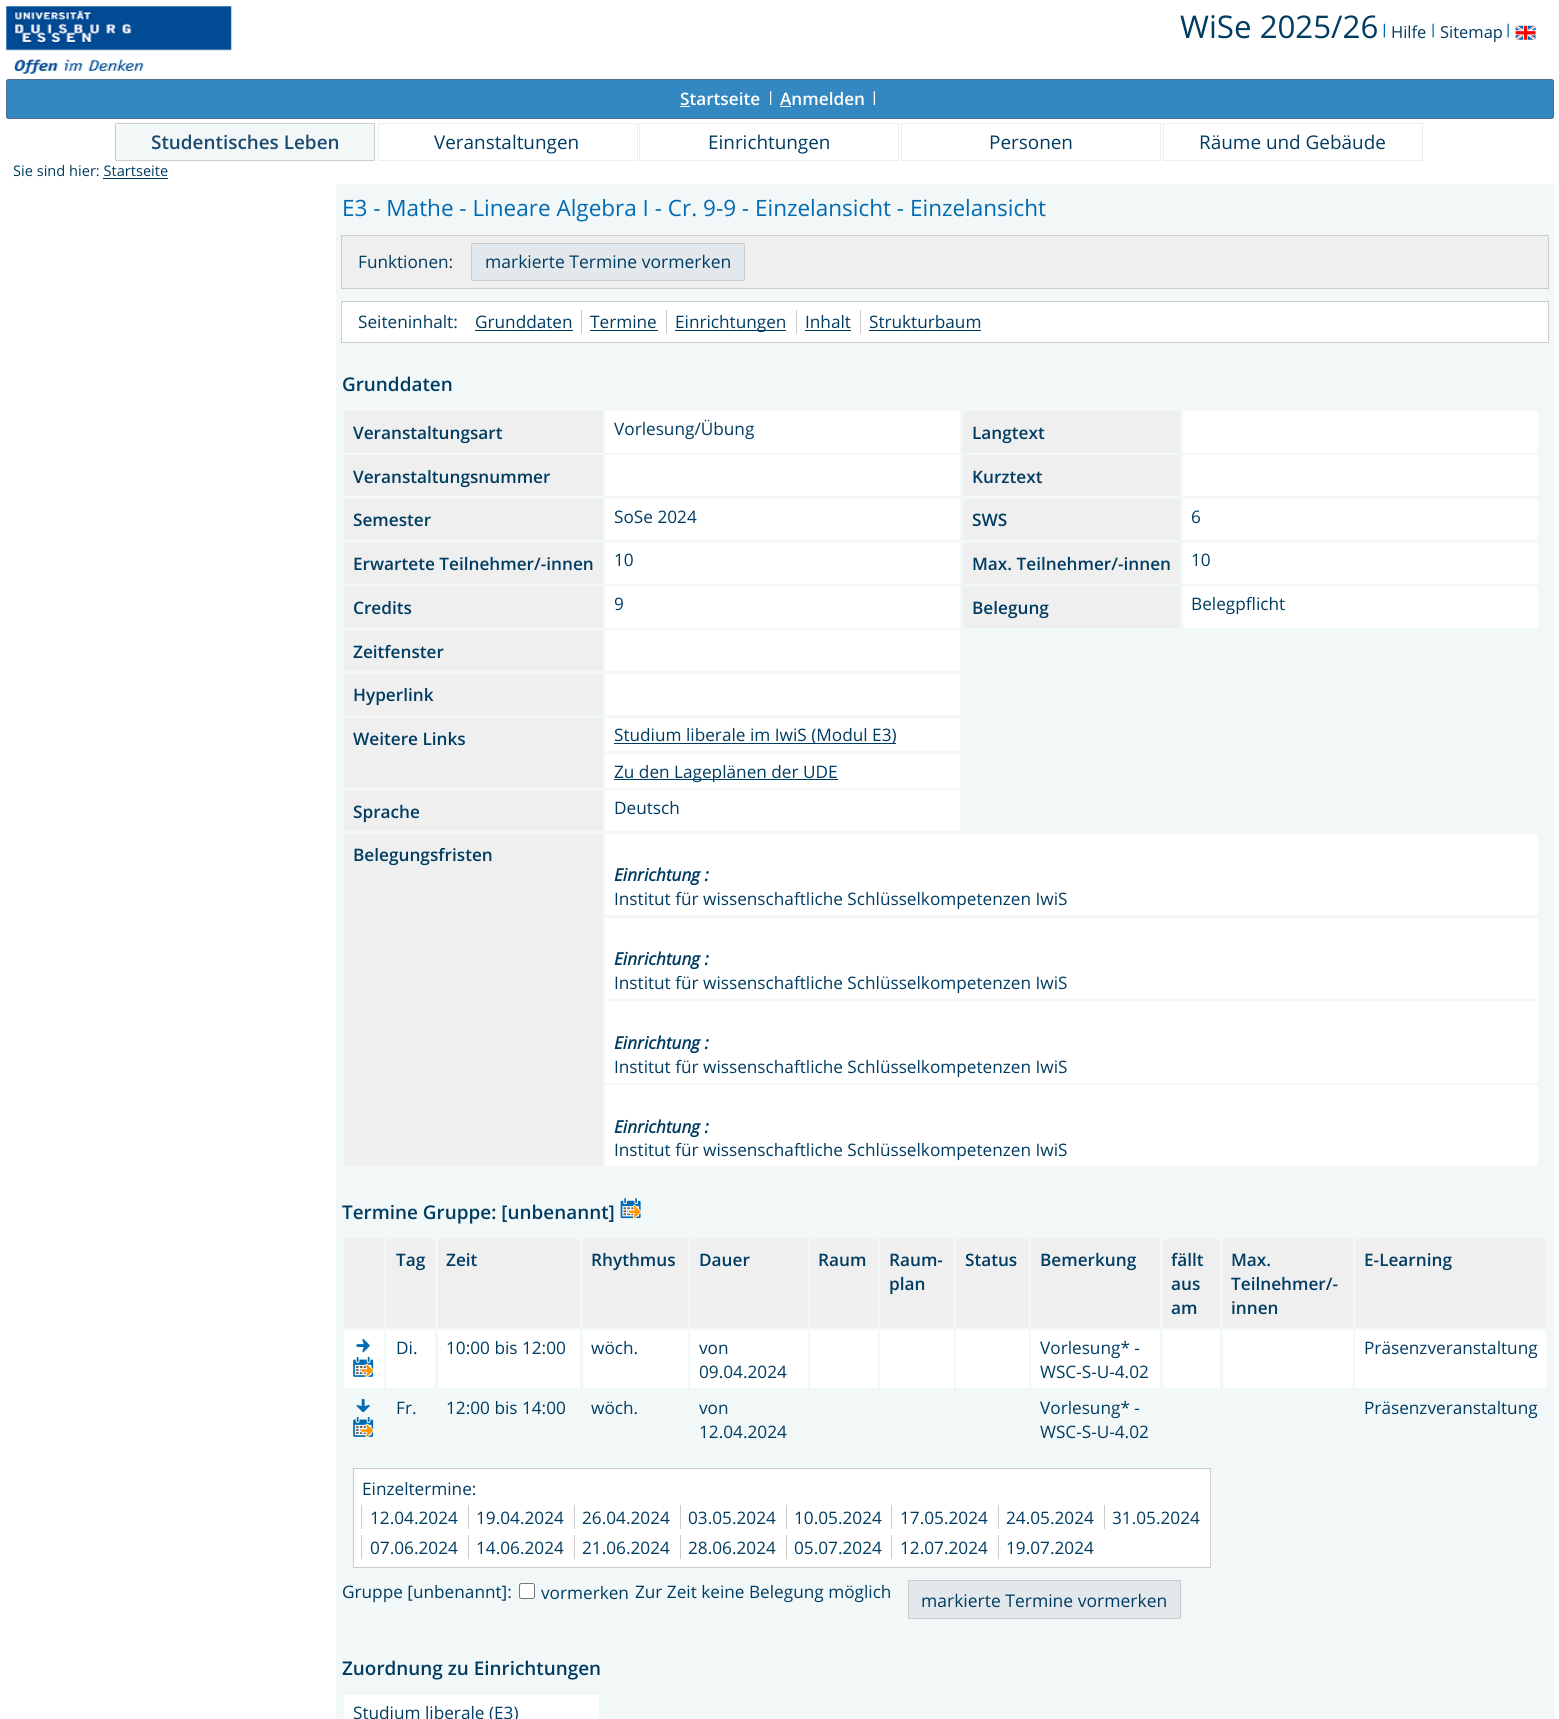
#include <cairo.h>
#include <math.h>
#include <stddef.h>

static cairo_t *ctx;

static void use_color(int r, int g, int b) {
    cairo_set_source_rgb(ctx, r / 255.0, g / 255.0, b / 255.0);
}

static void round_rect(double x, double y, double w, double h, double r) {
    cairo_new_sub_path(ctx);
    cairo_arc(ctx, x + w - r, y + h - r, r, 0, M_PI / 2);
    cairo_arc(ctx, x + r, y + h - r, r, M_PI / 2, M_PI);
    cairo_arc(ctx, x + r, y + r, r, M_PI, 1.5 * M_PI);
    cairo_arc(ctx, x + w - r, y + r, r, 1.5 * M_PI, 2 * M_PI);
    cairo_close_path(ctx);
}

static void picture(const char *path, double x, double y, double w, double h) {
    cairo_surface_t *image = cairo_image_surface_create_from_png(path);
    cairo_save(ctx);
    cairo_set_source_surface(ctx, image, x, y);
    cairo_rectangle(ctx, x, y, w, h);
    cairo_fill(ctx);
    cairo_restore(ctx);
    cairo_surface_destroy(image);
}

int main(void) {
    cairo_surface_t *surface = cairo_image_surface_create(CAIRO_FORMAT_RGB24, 1559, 1719);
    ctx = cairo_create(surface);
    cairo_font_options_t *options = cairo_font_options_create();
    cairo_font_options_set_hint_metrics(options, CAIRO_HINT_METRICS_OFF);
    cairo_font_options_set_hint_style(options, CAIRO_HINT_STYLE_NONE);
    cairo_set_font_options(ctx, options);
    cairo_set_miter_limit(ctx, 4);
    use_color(255, 255, 255);
    cairo_paint(ctx);
    picture("img1.png", 6, 6, 226, 68);
    cairo_select_font_face(ctx, "Open Sans", CAIRO_FONT_SLANT_NORMAL, CAIRO_FONT_WEIGHT_NORMAL);
    cairo_set_font_size(ctx, 31.25);
    use_color(0, 60, 98);
    cairo_move_to(ctx, 1180, 38);
    cairo_show_text(ctx, "WiSe 2025/26");
    picture("img2.png", 1383, 23, 2, 15);
    cairo_set_font_size(ctx, 16.5);
    cairo_move_to(ctx, 1391, 38);
    cairo_show_text(ctx, "Hilfe");
    picture("img3.png", 1432, 23, 2, 15);
    cairo_move_to(ctx, 1440, 38);
    cairo_show_text(ctx, "Sitemap");
    picture("img3.png", 1507, 23, 2, 15);
    picture("img4.png", 1515, 25, 21, 15);
    use_color(51, 136, 193);
    round_rect(6.5, 79.5, 1547, 39, 2);
    cairo_fill_preserve(ctx);
    use_color(82, 108, 142);
    cairo_set_line_width(ctx, 1);
    cairo_stroke(ctx);
    cairo_select_font_face(ctx, "Open Sans SemiBold", CAIRO_FONT_SLANT_NORMAL, CAIRO_FONT_WEIGHT_NORMAL);
    cairo_set_font_size(ctx, 17.2);
    use_color(255, 255, 255);
    cairo_move_to(ctx, 680, 105);
    cairo_show_text(ctx, "Startseite");
    cairo_rectangle(ctx, 680, 106, 10, 1);
    cairo_fill(ctx);
    picture("img5.png", 770, 91, 2, 14);
    cairo_move_to(ctx, 780, 105);
    cairo_show_text(ctx, "Anmelden");
    cairo_rectangle(ctx, 780, 106, 11, 1);
    cairo_fill(ctx);
    picture("img6.png", 873, 91, 2, 14);
    use_color(242, 247, 248);
    round_rect(115.5, 123.5, 259, 37, 0.5);
    cairo_fill_preserve(ctx);
    use_color(204, 204, 204);
    cairo_stroke(ctx);
    cairo_set_font_size(ctx, 18.9);
    use_color(28, 74, 112);
    cairo_move_to(ctx, 151, 149);
    cairo_show_text(ctx, "Studentisches Leben");
    round_rect(378.5, 123.5, 259, 37, 0.5);
    use_color(233, 238, 240);
    cairo_stroke(ctx);
    cairo_select_font_face(ctx, "Open Sans", CAIRO_FONT_SLANT_NORMAL, CAIRO_FONT_WEIGHT_NORMAL);
    use_color(0, 60, 98);
    cairo_move_to(ctx, 434, 149);
    cairo_show_text(ctx, "Veranstaltungen");
    round_rect(639.5, 123.5, 259, 37, 0.5);
    use_color(233, 238, 240);
    cairo_stroke(ctx);
    use_color(0, 60, 98);
    cairo_move_to(ctx, 708, 149);
    cairo_show_text(ctx, "Einrichtungen");
    round_rect(901.5, 123.5, 259, 37, 0.5);
    use_color(233, 238, 240);
    cairo_stroke(ctx);
    use_color(0, 60, 98);
    cairo_move_to(ctx, 989, 149);
    cairo_show_text(ctx, "Personen");
    round_rect(1163.5, 123.5, 259, 37, 0.5);
    use_color(233, 238, 240);
    cairo_stroke(ctx);
    use_color(0, 60, 98);
    cairo_move_to(ctx, 1199, 149);
    cairo_show_text(ctx, "Räume und Gebäude");
    cairo_set_font_size(ctx, 14.6);
    cairo_move_to(ctx, 13, 176);
    cairo_show_text(ctx, "Sie sind hier: Startseite");
    cairo_rectangle(ctx, 103, 178, 65, 1);
    cairo_fill(ctx);
    use_color(242, 247, 248);
    cairo_rectangle(ctx, 336, 184, 1218, 1535);
    cairo_fill(ctx);
    cairo_set_font_size(ctx, 22.5);
    use_color(0, 106, 178);
    cairo_move_to(ctx, 342, 216);
    cairo_show_text(ctx, "E3 - Mathe - Lineare Algebra I - Cr. 9-9 - Einzelansicht - Einzelansicht");
    use_color(239, 239, 239);
    cairo_rectangle(ctx, 341.5, 235.5, 1207, 53);
    cairo_fill_preserve(ctx);
    use_color(204, 204, 204);
    cairo_stroke(ctx);
    cairo_set_font_size(ctx, 17.2);
    use_color(0, 60, 98);
    cairo_move_to(ctx, 358, 268);
    cairo_show_text(ctx, "Funktionen:");
    use_color(226, 232, 236);
    round_rect(471.5, 243.5, 273, 37, 0.5);
    cairo_fill_preserve(ctx);
    use_color(204, 204, 204);
    cairo_stroke(ctx);
    cairo_set_font_size(ctx, 17.5);
    use_color(0, 60, 98);
    cairo_move_to(ctx, 485, 268);
    cairo_show_text(ctx, "markierte Termine vormerken");
    use_color(255, 255, 255);
    cairo_rectangle(ctx, 341.5, 301.5, 1207, 41);
    cairo_fill_preserve(ctx);
    use_color(204, 204, 204);
    cairo_stroke(ctx);
    cairo_set_font_size(ctx, 17.2);
    use_color(0, 60, 98);
    cairo_move_to(ctx, 358, 328);
    cairo_show_text(ctx, "Seiteninhalt:");
    cairo_move_to(ctx, 475, 328);
    cairo_show_text(ctx, "Grunddaten");
    cairo_rectangle(ctx, 475, 330, 98, 1);
    cairo_fill(ctx);
    cairo_move_to(ctx, 590, 328);
    cairo_show_text(ctx, "Termine");
    use_color(204, 204, 204);
    cairo_rectangle(ctx, 581, 310, 1, 24);
    cairo_fill(ctx);
    use_color(0, 60, 98);
    cairo_rectangle(ctx, 590, 330, 68, 1);
    cairo_fill(ctx);
    cairo_rectangle(ctx, 675, 330, 111, 1);
    cairo_fill(ctx);
    cairo_move_to(ctx, 675, 328);
    cairo_show_text(ctx, "Einrichtungen");
    use_color(204, 204, 204);
    cairo_rectangle(ctx, 666, 310, 1, 24);
    cairo_fill(ctx);
    use_color(0, 60, 98);
    cairo_move_to(ctx, 805, 328);
    cairo_show_text(ctx, "Inhalt");
    use_color(204, 204, 204);
    cairo_rectangle(ctx, 796, 310, 1, 24);
    cairo_fill(ctx);
    use_color(0, 60, 98);
    cairo_rectangle(ctx, 805, 330, 46, 1);
    cairo_fill(ctx);
    cairo_move_to(ctx, 869, 328);
    cairo_show_text(ctx, "Strukturbaum");
    use_color(204, 204, 204);
    cairo_rectangle(ctx, 860, 310, 1, 24);
    cairo_fill(ctx);
    use_color(0, 60, 98);
    cairo_rectangle(ctx, 869, 330, 112, 1);
    cairo_fill(ctx);
    cairo_select_font_face(ctx, "Open Sans SemiBold", CAIRO_FONT_SLANT_NORMAL, CAIRO_FONT_WEIGHT_NORMAL);
    cairo_set_font_size(ctx, 18.9);
    cairo_move_to(ctx, 342, 391);
    cairo_show_text(ctx, "Grunddaten");
    use_color(239, 239, 239);
    cairo_rectangle(ctx, 344, 411, 259, 42);
    cairo_fill(ctx);
    cairo_set_font_size(ctx, 17.2);
    use_color(0, 60, 98);
    cairo_move_to(ctx, 353, 439);
    cairo_show_text(ctx, "Veranstaltungsart");
    use_color(255, 255, 255);
    cairo_rectangle(ctx, 605, 411, 355, 42);
    cairo_fill(ctx);
    cairo_select_font_face(ctx, "Open Sans", CAIRO_FONT_SLANT_NORMAL, CAIRO_FONT_WEIGHT_NORMAL);
    use_color(0, 60, 98);
    cairo_move_to(ctx, 614, 435);
    cairo_show_text(ctx, "Vorlesung/Übung");
    use_color(239, 239, 239);
    cairo_rectangle(ctx, 963, 411, 217, 42);
    cairo_fill(ctx);
    cairo_select_font_face(ctx, "Open Sans SemiBold", CAIRO_FONT_SLANT_NORMAL, CAIRO_FONT_WEIGHT_NORMAL);
    use_color(0, 60, 98);
    cairo_move_to(ctx, 972, 439);
    cairo_show_text(ctx, "Langtext");
    use_color(255, 255, 255);
    cairo_rectangle(ctx, 1183, 411, 355, 42);
    cairo_fill(ctx);
    use_color(239, 239, 239);
    cairo_rectangle(ctx, 344, 455, 259, 41);
    cairo_fill(ctx);
    use_color(0, 60, 98);
    cairo_move_to(ctx, 353, 483);
    cairo_show_text(ctx, "Veranstaltungsnummer");
    use_color(255, 255, 255);
    cairo_rectangle(ctx, 605, 455, 355, 41);
    cairo_fill(ctx);
    use_color(239, 239, 239);
    cairo_rectangle(ctx, 963, 455, 217, 41);
    cairo_fill(ctx);
    use_color(0, 60, 98);
    cairo_move_to(ctx, 972, 483);
    cairo_show_text(ctx, "Kurztext");
    use_color(255, 255, 255);
    cairo_rectangle(ctx, 1183, 455, 355, 41);
    cairo_fill(ctx);
    use_color(239, 239, 239);
    cairo_rectangle(ctx, 344, 499, 259, 41);
    cairo_fill(ctx);
    use_color(0, 60, 98);
    cairo_move_to(ctx, 353, 526);
    cairo_show_text(ctx, "Semester");
    use_color(255, 255, 255);
    cairo_rectangle(ctx, 605, 499, 355, 41);
    cairo_fill(ctx);
    cairo_select_font_face(ctx, "Open Sans", CAIRO_FONT_SLANT_NORMAL, CAIRO_FONT_WEIGHT_NORMAL);
    use_color(0, 60, 98);
    cairo_move_to(ctx, 614, 523);
    cairo_show_text(ctx, "SoSe 2024");
    use_color(239, 239, 239);
    cairo_rectangle(ctx, 963, 499, 217, 41);
    cairo_fill(ctx);
    cairo_select_font_face(ctx, "Open Sans SemiBold", CAIRO_FONT_SLANT_NORMAL, CAIRO_FONT_WEIGHT_NORMAL);
    use_color(0, 60, 98);
    cairo_move_to(ctx, 972, 526);
    cairo_show_text(ctx, "SWS");
    use_color(255, 255, 255);
    cairo_rectangle(ctx, 1183, 499, 355, 41);
    cairo_fill(ctx);
    cairo_select_font_face(ctx, "Open Sans", CAIRO_FONT_SLANT_NORMAL, CAIRO_FONT_WEIGHT_NORMAL);
    use_color(0, 60, 98);
    cairo_move_to(ctx, 1191, 523);
    cairo_show_text(ctx, "6");
    use_color(239, 239, 239);
    cairo_rectangle(ctx, 344, 543, 259, 41);
    cairo_fill(ctx);
    cairo_select_font_face(ctx, "Open Sans SemiBold", CAIRO_FONT_SLANT_NORMAL, CAIRO_FONT_WEIGHT_NORMAL);
    use_color(0, 60, 98);
    cairo_move_to(ctx, 353, 570);
    cairo_show_text(ctx, "Erwartete Teilnehmer/-innen");
    use_color(255, 255, 255);
    cairo_rectangle(ctx, 605, 543, 355, 41);
    cairo_fill(ctx);
    cairo_select_font_face(ctx, "Open Sans", CAIRO_FONT_SLANT_NORMAL, CAIRO_FONT_WEIGHT_NORMAL);
    use_color(0, 60, 98);
    cairo_move_to(ctx, 614, 566);
    cairo_show_text(ctx, "10");
    use_color(239, 239, 239);
    cairo_rectangle(ctx, 963, 543, 217, 41);
    cairo_fill(ctx);
    cairo_select_font_face(ctx, "Open Sans SemiBold", CAIRO_FONT_SLANT_NORMAL, CAIRO_FONT_WEIGHT_NORMAL);
    use_color(0, 60, 98);
    cairo_move_to(ctx, 972, 570);
    cairo_show_text(ctx, "Max. Teilnehmer/-innen");
    use_color(255, 255, 255);
    cairo_rectangle(ctx, 1183, 543, 355, 41);
    cairo_fill(ctx);
    cairo_select_font_face(ctx, "Open Sans", CAIRO_FONT_SLANT_NORMAL, CAIRO_FONT_WEIGHT_NORMAL);
    use_color(0, 60, 98);
    cairo_move_to(ctx, 1191, 566);
    cairo_show_text(ctx, "10");
    use_color(239, 239, 239);
    cairo_rectangle(ctx, 344, 586, 259, 42);
    cairo_fill(ctx);
    cairo_select_font_face(ctx, "Open Sans SemiBold", CAIRO_FONT_SLANT_NORMAL, CAIRO_FONT_WEIGHT_NORMAL);
    use_color(0, 60, 98);
    cairo_move_to(ctx, 353, 614);
    cairo_show_text(ctx, "Credits");
    use_color(255, 255, 255);
    cairo_rectangle(ctx, 605, 586, 355, 42);
    cairo_fill(ctx);
    cairo_select_font_face(ctx, "Open Sans", CAIRO_FONT_SLANT_NORMAL, CAIRO_FONT_WEIGHT_NORMAL);
    use_color(0, 60, 98);
    cairo_move_to(ctx, 614, 610);
    cairo_show_text(ctx, "9");
    use_color(239, 239, 239);
    cairo_rectangle(ctx, 963, 586, 217, 42);
    cairo_fill(ctx);
    cairo_select_font_face(ctx, "Open Sans SemiBold", CAIRO_FONT_SLANT_NORMAL, CAIRO_FONT_WEIGHT_NORMAL);
    use_color(0, 60, 98);
    cairo_move_to(ctx, 972, 614);
    cairo_show_text(ctx, "Belegung");
    use_color(255, 255, 255);
    cairo_rectangle(ctx, 1183, 586, 355, 42);
    cairo_fill(ctx);
    cairo_select_font_face(ctx, "Open Sans", CAIRO_FONT_SLANT_NORMAL, CAIRO_FONT_WEIGHT_NORMAL);
    use_color(0, 60, 98);
    cairo_move_to(ctx, 1191, 610);
    cairo_show_text(ctx, "Belegpflicht");
    use_color(239, 239, 239);
    cairo_rectangle(ctx, 344, 630, 259, 41);
    cairo_fill(ctx);
    cairo_select_font_face(ctx, "Open Sans SemiBold", CAIRO_FONT_SLANT_NORMAL, CAIRO_FONT_WEIGHT_NORMAL);
    use_color(0, 60, 98);
    cairo_move_to(ctx, 353, 658);
    cairo_show_text(ctx, "Zeitfenster");
    use_color(255, 255, 255);
    cairo_rectangle(ctx, 605, 630, 355, 41);
    cairo_fill(ctx);
    use_color(239, 239, 239);
    cairo_rectangle(ctx, 344, 674, 259, 41);
    cairo_fill(ctx);
    use_color(0, 60, 98);
    cairo_move_to(ctx, 353, 701);
    cairo_show_text(ctx, "Hyperlink");
    use_color(255, 255, 255);
    cairo_rectangle(ctx, 605, 674, 355, 41);
    cairo_fill(ctx);
    use_color(239, 239, 239);
    cairo_rectangle(ctx, 344, 718, 259, 70);
    cairo_fill(ctx);
    use_color(0, 60, 98);
    cairo_move_to(ctx, 353, 745);
    cairo_show_text(ctx, "Weitere Links");
    use_color(255, 255, 255);
    cairo_rectangle(ctx, 605, 718, 355, 33);
    cairo_fill(ctx);
    use_color(0, 60, 98);
    cairo_rectangle(ctx, 614, 743, 282, 1);
    cairo_fill(ctx);
    cairo_select_font_face(ctx, "Open Sans", CAIRO_FONT_SLANT_NORMAL, CAIRO_FONT_WEIGHT_NORMAL);
    cairo_move_to(ctx, 614, 741);
    cairo_show_text(ctx, "Studium liberale im IwiS (Modul E3)");
    use_color(255, 255, 255);
    cairo_rectangle(ctx, 605, 754, 355, 34);
    cairo_fill(ctx);
    use_color(0, 60, 98);
    cairo_rectangle(ctx, 614, 779, 224, 1);
    cairo_fill(ctx);
    cairo_move_to(ctx, 614, 778);
    cairo_show_text(ctx, "Zu den Lageplänen der UDE");
    use_color(239, 239, 239);
    cairo_rectangle(ctx, 344, 790, 259, 41);
    cairo_fill(ctx);
    cairo_select_font_face(ctx, "Open Sans SemiBold", CAIRO_FONT_SLANT_NORMAL, CAIRO_FONT_WEIGHT_NORMAL);
    use_color(0, 60, 98);
    cairo_move_to(ctx, 353, 818);
    cairo_show_text(ctx, "Sprache");
    use_color(255, 255, 255);
    cairo_rectangle(ctx, 605, 790, 355, 41);
    cairo_fill(ctx);
    cairo_select_font_face(ctx, "Open Sans", CAIRO_FONT_SLANT_NORMAL, CAIRO_FONT_WEIGHT_NORMAL);
    use_color(0, 60, 98);
    cairo_move_to(ctx, 614, 814);
    cairo_show_text(ctx, "Deutsch");
    use_color(239, 239, 239);
    cairo_rectangle(ctx, 344, 834, 259, 332);
    cairo_fill(ctx);
    cairo_select_font_face(ctx, "Open Sans SemiBold", CAIRO_FONT_SLANT_NORMAL, CAIRO_FONT_WEIGHT_NORMAL);
    use_color(0, 60, 98);
    cairo_move_to(ctx, 353, 861);
    cairo_show_text(ctx, "Belegungsfristen");
    use_color(255, 255, 255);
    cairo_rectangle(ctx, 605, 834, 933, 81);
    cairo_fill(ctx);
    cairo_select_font_face(ctx, "Open Sans", CAIRO_FONT_SLANT_ITALIC, CAIRO_FONT_WEIGHT_BOLD);
    use_color(0, 60, 98);
    cairo_move_to(ctx, 614, 881);
    cairo_show_text(ctx, "Einrichtung :");
    cairo_select_font_face(ctx, "Open Sans", CAIRO_FONT_SLANT_NORMAL, CAIRO_FONT_WEIGHT_NORMAL);
    cairo_move_to(ctx, 614, 905);
    cairo_show_text(ctx, "Institut für wissenschaftliche Schlüsselkompetenzen IwiS");
    use_color(255, 255, 255);
    cairo_rectangle(ctx, 605, 918, 933, 81);
    cairo_fill(ctx);
    cairo_select_font_face(ctx, "Open Sans", CAIRO_FONT_SLANT_ITALIC, CAIRO_FONT_WEIGHT_BOLD);
    use_color(0, 60, 98);
    cairo_move_to(ctx, 614, 965);
    cairo_show_text(ctx, "Einrichtung :");
    cairo_select_font_face(ctx, "Open Sans", CAIRO_FONT_SLANT_NORMAL, CAIRO_FONT_WEIGHT_NORMAL);
    cairo_move_to(ctx, 614, 989);
    cairo_show_text(ctx, "Institut für wissenschaftliche Schlüsselkompetenzen IwiS");
    use_color(255, 255, 255);
    cairo_rectangle(ctx, 605, 1001, 933, 82);
    cairo_fill(ctx);
    cairo_select_font_face(ctx, "Open Sans", CAIRO_FONT_SLANT_ITALIC, CAIRO_FONT_WEIGHT_BOLD);
    use_color(0, 60, 98);
    cairo_move_to(ctx, 614, 1049);
    cairo_show_text(ctx, "Einrichtung :");
    cairo_select_font_face(ctx, "Open Sans", CAIRO_FONT_SLANT_NORMAL, CAIRO_FONT_WEIGHT_NORMAL);
    cairo_move_to(ctx, 614, 1073);
    cairo_show_text(ctx, "Institut für wissenschaftliche Schlüsselkompetenzen IwiS");
    use_color(255, 255, 255);
    cairo_rectangle(ctx, 605, 1085, 933, 81);
    cairo_fill(ctx);
    cairo_select_font_face(ctx, "Open Sans", CAIRO_FONT_SLANT_ITALIC, CAIRO_FONT_WEIGHT_BOLD);
    use_color(0, 60, 98);
    cairo_move_to(ctx, 614, 1133);
    cairo_show_text(ctx, "Einrichtung :");
    cairo_select_font_face(ctx, "Open Sans", CAIRO_FONT_SLANT_NORMAL, CAIRO_FONT_WEIGHT_NORMAL);
    cairo_move_to(ctx, 614, 1156);
    cairo_show_text(ctx, "Institut für wissenschaftliche Schlüsselkompetenzen IwiS");
    cairo_select_font_face(ctx, "Open Sans SemiBold", CAIRO_FONT_SLANT_NORMAL, CAIRO_FONT_WEIGHT_NORMAL);
    cairo_set_font_size(ctx, 18.9);
    cairo_move_to(ctx, 342, 1219);
    cairo_show_text(ctx, "Termine Gruppe: [unbenannt]");
    picture("img7.png", 620, 1198, 21, 21);
    use_color(239, 239, 239);
    cairo_rectangle(ctx, 344, 1239, 40, 89);
    cairo_fill(ctx);
    cairo_rectangle(ctx, 386, 1239, 49, 89);
    cairo_fill(ctx);
    cairo_set_font_size(ctx, 17.2);
    use_color(0, 60, 98);
    cairo_move_to(ctx, 396, 1266);
    cairo_show_text(ctx, "Tag");
    use_color(239, 239, 239);
    cairo_rectangle(ctx, 438, 1239, 142, 89);
    cairo_fill(ctx);
    use_color(0, 60, 98);
    cairo_move_to(ctx, 446, 1266);
    cairo_show_text(ctx, "Zeit");
    use_color(239, 239, 239);
    cairo_rectangle(ctx, 583, 1239, 105, 89);
    cairo_fill(ctx);
    use_color(0, 60, 98);
    cairo_move_to(ctx, 591, 1266);
    cairo_show_text(ctx, "Rhythmus");
    use_color(239, 239, 239);
    cairo_rectangle(ctx, 690, 1239, 118, 89);
    cairo_fill(ctx);
    use_color(0, 60, 98);
    cairo_move_to(ctx, 699, 1266);
    cairo_show_text(ctx, "Dauer");
    use_color(239, 239, 239);
    cairo_rectangle(ctx, 810, 1239, 68, 89);
    cairo_fill(ctx);
    use_color(0, 60, 98);
    cairo_move_to(ctx, 818, 1266);
    cairo_show_text(ctx, "Raum");
    use_color(239, 239, 239);
    cairo_rectangle(ctx, 880, 1239, 74, 89);
    cairo_fill(ctx);
    use_color(0, 60, 98);
    cairo_move_to(ctx, 889, 1266);
    cairo_show_text(ctx, "Raum-");
    cairo_move_to(ctx, 889, 1290);
    cairo_show_text(ctx, "plan");
    use_color(239, 239, 239);
    cairo_rectangle(ctx, 956, 1239, 73, 89);
    cairo_fill(ctx);
    use_color(0, 60, 98);
    cairo_move_to(ctx, 965, 1266);
    cairo_show_text(ctx, "Status");
    use_color(239, 239, 239);
    cairo_rectangle(ctx, 1031, 1239, 129, 89);
    cairo_fill(ctx);
    use_color(0, 60, 98);
    cairo_move_to(ctx, 1040, 1266);
    cairo_show_text(ctx, "Bemerkung");
    use_color(239, 239, 239);
    cairo_rectangle(ctx, 1163, 1239, 57, 89);
    cairo_fill(ctx);
    use_color(0, 60, 98);
    cairo_move_to(ctx, 1171, 1266);
    cairo_show_text(ctx, "fällt");
    cairo_move_to(ctx, 1171, 1290);
    cairo_show_text(ctx, "aus");
    cairo_move_to(ctx, 1171, 1314);
    cairo_show_text(ctx, "am");
    use_color(239, 239, 239);
    cairo_rectangle(ctx, 1223, 1239, 130, 89);
    cairo_fill(ctx);
    use_color(0, 60, 98);
    cairo_move_to(ctx, 1231, 1266);
    cairo_show_text(ctx, "Max.");
    cairo_move_to(ctx, 1231, 1290);
    cairo_show_text(ctx, "Teilnehmer/-");
    cairo_move_to(ctx, 1231, 1314);
    cairo_show_text(ctx, "innen");
    use_color(239, 239, 239);
    cairo_rectangle(ctx, 1355, 1239, 191, 89);
    cairo_fill(ctx);
    use_color(0, 60, 98);
    cairo_move_to(ctx, 1364, 1266);
    cairo_show_text(ctx, "E-Learning");
    use_color(255, 255, 255);
    cairo_rectangle(ctx, 344, 1330, 40, 58);
    cairo_fill(ctx);
    picture("img8.png", 356, 1339, 14, 14);
    picture("img9.png", 353, 1356, 21, 21);
    cairo_rectangle(ctx, 386, 1330, 49, 58);
    cairo_fill(ctx);
    cairo_select_font_face(ctx, "Open Sans", CAIRO_FONT_SLANT_NORMAL, CAIRO_FONT_WEIGHT_NORMAL);
    use_color(0, 60, 98);
    cairo_move_to(ctx, 396, 1354);
    cairo_show_text(ctx, "Di.");
    use_color(255, 255, 255);
    cairo_rectangle(ctx, 438, 1330, 142, 58);
    cairo_fill(ctx);
    use_color(0, 60, 98);
    cairo_move_to(ctx, 446, 1354);
    cairo_show_text(ctx, "10:00 bis 12:00");
    use_color(255, 255, 255);
    cairo_rectangle(ctx, 583, 1330, 105, 58);
    cairo_fill(ctx);
    use_color(0, 60, 98);
    cairo_move_to(ctx, 591, 1354);
    cairo_show_text(ctx, "wöch.");
    use_color(255, 255, 255);
    cairo_rectangle(ctx, 690, 1330, 118, 58);
    cairo_fill(ctx);
    use_color(0, 60, 98);
    cairo_move_to(ctx, 699, 1354);
    cairo_show_text(ctx, "von");
    cairo_move_to(ctx, 699, 1378);
    cairo_show_text(ctx, "09.04.2024");
    use_color(255, 255, 255);
    cairo_rectangle(ctx, 810, 1330, 68, 58);
    cairo_fill(ctx);
    cairo_rectangle(ctx, 880, 1330, 74, 58);
    cairo_fill(ctx);
    cairo_rectangle(ctx, 956, 1330, 73, 58);
    cairo_fill(ctx);
    cairo_rectangle(ctx, 1031, 1330, 129, 58);
    cairo_fill(ctx);
    use_color(0, 60, 98);
    cairo_move_to(ctx, 1040, 1354);
    cairo_show_text(ctx, "Vorlesung* -");
    cairo_move_to(ctx, 1040, 1378);
    cairo_show_text(ctx, "WSC-S-U-4.02");
    use_color(255, 255, 255);
    cairo_rectangle(ctx, 1163, 1330, 57, 58);
    cairo_fill(ctx);
    cairo_rectangle(ctx, 1223, 1330, 130, 58);
    cairo_fill(ctx);
    cairo_rectangle(ctx, 1355, 1330, 191, 58);
    cairo_fill(ctx);
    use_color(0, 60, 98);
    cairo_move_to(ctx, 1364, 1354);
    cairo_show_text(ctx, "Präsenzveranstaltung");
    picture("img10.png", 356, 1399, 14, 14);
    picture("img11.png", 353, 1416, 21, 22);
    cairo_move_to(ctx, 396, 1414);
    cairo_show_text(ctx, "Fr.");
    cairo_move_to(ctx, 446, 1414);
    cairo_show_text(ctx, "12:00 bis 14:00");
    cairo_move_to(ctx, 591, 1414);
    cairo_show_text(ctx, "wöch.");
    cairo_move_to(ctx, 699, 1414);
    cairo_show_text(ctx, "von");
    cairo_move_to(ctx, 699, 1438);
    cairo_show_text(ctx, "12.04.2024");
    cairo_move_to(ctx, 1040, 1414);
    cairo_show_text(ctx, "Vorlesung* -");
    cairo_move_to(ctx, 1040, 1438);
    cairo_show_text(ctx, "WSC-S-U-4.02");
    cairo_move_to(ctx, 1364, 1414);
    cairo_show_text(ctx, "Präsenzveranstaltung");
    use_color(255, 255, 255);
    cairo_rectangle(ctx, 353.5, 1468.5, 857, 99);
    cairo_fill_preserve(ctx);
    use_color(204, 204, 204);
    cairo_stroke(ctx);
    use_color(0, 60, 98);
    cairo_move_to(ctx, 362, 1495);
    cairo_show_text(ctx, "Einzeltermine:");
    cairo_move_to(ctx, 370, 1524);
    cairo_show_text(ctx, "12.04.2024");
    use_color(204, 204, 204);
    cairo_rectangle(ctx, 361, 1505, 1, 24);
    cairo_fill(ctx);
    use_color(0, 60, 98);
    cairo_move_to(ctx, 476, 1524);
    cairo_show_text(ctx, "19.04.2024");
    use_color(204, 204, 204);
    cairo_rectangle(ctx, 468, 1505, 1, 24);
    cairo_fill(ctx);
    use_color(0, 60, 98);
    cairo_move_to(ctx, 582, 1524);
    cairo_show_text(ctx, "26.04.2024");
    use_color(204, 204, 204);
    cairo_rectangle(ctx, 574, 1505, 1, 24);
    cairo_fill(ctx);
    use_color(0, 60, 98);
    cairo_move_to(ctx, 688, 1524);
    cairo_show_text(ctx, "03.05.2024");
    use_color(204, 204, 204);
    cairo_rectangle(ctx, 680, 1505, 1, 24);
    cairo_fill(ctx);
    use_color(0, 60, 98);
    cairo_move_to(ctx, 794, 1524);
    cairo_show_text(ctx, "10.05.2024");
    use_color(204, 204, 204);
    cairo_rectangle(ctx, 786, 1505, 1, 24);
    cairo_fill(ctx);
    use_color(0, 60, 98);
    cairo_move_to(ctx, 900, 1524);
    cairo_show_text(ctx, "17.05.2024");
    use_color(204, 204, 204);
    cairo_rectangle(ctx, 891, 1505, 1, 24);
    cairo_fill(ctx);
    use_color(0, 60, 98);
    cairo_move_to(ctx, 1006, 1524);
    cairo_show_text(ctx, "24.05.2024");
    use_color(204, 204, 204);
    cairo_rectangle(ctx, 998, 1505, 1, 24);
    cairo_fill(ctx);
    use_color(0, 60, 98);
    cairo_move_to(ctx, 1112, 1524);
    cairo_show_text(ctx, "31.05.2024");
    use_color(204, 204, 204);
    cairo_rectangle(ctx, 1104, 1505, 1, 24);
    cairo_fill(ctx);
    use_color(0, 60, 98);
    cairo_move_to(ctx, 370, 1554);
    cairo_show_text(ctx, "07.06.2024");
    use_color(204, 204, 204);
    cairo_rectangle(ctx, 361, 1535, 1, 24);
    cairo_fill(ctx);
    use_color(0, 60, 98);
    cairo_move_to(ctx, 476, 1554);
    cairo_show_text(ctx, "14.06.2024");
    use_color(204, 204, 204);
    cairo_rectangle(ctx, 468, 1535, 1, 24);
    cairo_fill(ctx);
    use_color(0, 60, 98);
    cairo_move_to(ctx, 582, 1554);
    cairo_show_text(ctx, "21.06.2024");
    use_color(204, 204, 204);
    cairo_rectangle(ctx, 574, 1535, 1, 24);
    cairo_fill(ctx);
    use_color(0, 60, 98);
    cairo_move_to(ctx, 688, 1554);
    cairo_show_text(ctx, "28.06.2024");
    use_color(204, 204, 204);
    cairo_rectangle(ctx, 680, 1535, 1, 24);
    cairo_fill(ctx);
    use_color(0, 60, 98);
    cairo_move_to(ctx, 794, 1554);
    cairo_show_text(ctx, "05.07.2024");
    use_color(204, 204, 204);
    cairo_rectangle(ctx, 786, 1535, 1, 24);
    cairo_fill(ctx);
    use_color(0, 60, 98);
    cairo_move_to(ctx, 900, 1554);
    cairo_show_text(ctx, "12.07.2024");
    use_color(204, 204, 204);
    cairo_rectangle(ctx, 891, 1535, 1, 24);
    cairo_fill(ctx);
    use_color(0, 60, 98);
    cairo_move_to(ctx, 1006, 1554);
    cairo_show_text(ctx, "19.07.2024");
    use_color(204, 204, 204);
    cairo_rectangle(ctx, 998, 1535, 1, 24);
    cairo_fill(ctx);
    use_color(0, 60, 98);
    cairo_move_to(ctx, 342, 1598);
    cairo_show_text(ctx, "Gruppe [unbenannt]:");
    use_color(255, 255, 255);
    round_rect(519.5, 1583.5, 15, 15, 2);
    cairo_fill_preserve(ctx);
    use_color(118, 118, 118);
    cairo_stroke(ctx);
    use_color(0, 60, 98);
    cairo_move_to(ctx, 541, 1599);
    cairo_show_text(ctx, "vormerken");
    cairo_move_to(ctx, 635, 1598);
    cairo_show_text(ctx, "Zur Zeit keine Belegung möglich");
    use_color(226, 232, 236);
    round_rect(908.5, 1580.5, 272, 38, 0.5);
    cairo_fill_preserve(ctx);
    use_color(204, 204, 204);
    cairo_stroke(ctx);
    cairo_set_font_size(ctx, 17.5);
    use_color(0, 60, 98);
    cairo_move_to(ctx, 921, 1607);
    cairo_show_text(ctx, "markierte Termine vormerken");
    cairo_select_font_face(ctx, "Open Sans SemiBold", CAIRO_FONT_SLANT_NORMAL, CAIRO_FONT_WEIGHT_NORMAL);
    cairo_set_font_size(ctx, 18.9);
    cairo_move_to(ctx, 342, 1675);
    cairo_show_text(ctx, "Zuordnung zu Einrichtungen");
    use_color(255, 255, 255);
    cairo_rectangle(ctx, 344, 1695, 255, 24);
    cairo_fill(ctx);
    cairo_select_font_face(ctx, "Open Sans", CAIRO_FONT_SLANT_NORMAL, CAIRO_FONT_WEIGHT_NORMAL);
    cairo_set_font_size(ctx, 17.2);
    use_color(0, 60, 98);
    cairo_move_to(ctx, 353, 1719);
    cairo_show_text(ctx, "Studium liberale (E3)");
    cairo_surface_write_to_png(surface, "result.png");
    cairo_font_options_destroy(options);
    cairo_destroy(ctx);
    cairo_surface_destroy(surface);
    return 0;
}
